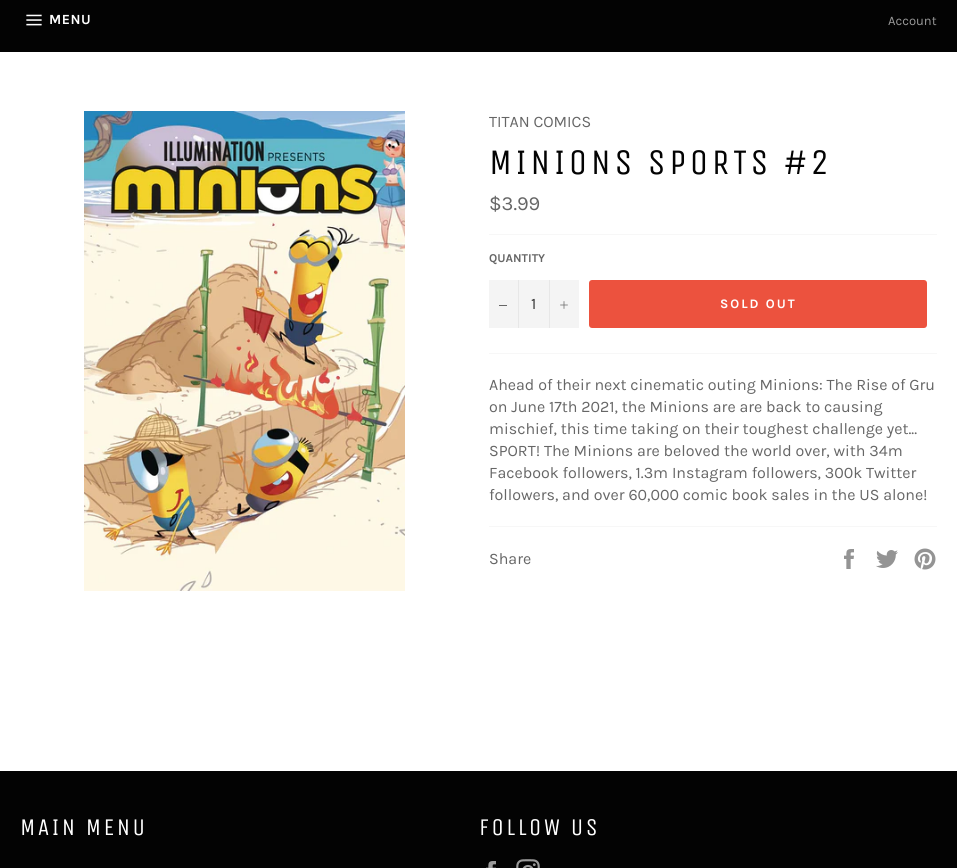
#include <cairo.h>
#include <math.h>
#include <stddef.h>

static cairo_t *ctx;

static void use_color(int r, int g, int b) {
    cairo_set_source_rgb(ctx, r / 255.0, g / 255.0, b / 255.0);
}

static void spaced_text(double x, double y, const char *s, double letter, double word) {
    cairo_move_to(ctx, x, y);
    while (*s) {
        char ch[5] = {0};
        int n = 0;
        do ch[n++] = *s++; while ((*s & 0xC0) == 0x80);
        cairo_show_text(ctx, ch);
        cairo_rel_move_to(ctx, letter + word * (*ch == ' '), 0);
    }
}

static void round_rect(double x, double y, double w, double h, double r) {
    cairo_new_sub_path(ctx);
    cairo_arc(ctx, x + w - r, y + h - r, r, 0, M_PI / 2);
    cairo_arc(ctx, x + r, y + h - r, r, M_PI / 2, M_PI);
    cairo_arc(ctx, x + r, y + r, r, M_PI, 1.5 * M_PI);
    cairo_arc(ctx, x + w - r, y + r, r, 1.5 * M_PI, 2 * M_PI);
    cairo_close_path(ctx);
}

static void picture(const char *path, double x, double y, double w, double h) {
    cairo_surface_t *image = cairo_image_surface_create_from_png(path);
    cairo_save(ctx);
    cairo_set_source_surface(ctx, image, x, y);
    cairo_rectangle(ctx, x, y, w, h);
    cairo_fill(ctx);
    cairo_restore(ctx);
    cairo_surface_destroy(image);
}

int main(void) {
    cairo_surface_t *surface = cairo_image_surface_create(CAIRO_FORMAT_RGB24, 957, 868);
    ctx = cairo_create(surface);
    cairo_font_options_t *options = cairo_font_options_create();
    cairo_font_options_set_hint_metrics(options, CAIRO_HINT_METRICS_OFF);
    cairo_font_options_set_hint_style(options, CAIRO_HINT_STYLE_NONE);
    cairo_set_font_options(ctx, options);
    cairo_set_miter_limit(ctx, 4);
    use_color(255, 255, 255);
    cairo_paint(ctx);
    use_color(3, 3, 3);
    cairo_rectangle(ctx, 0, 0, 957, 52);
    cairo_fill(ctx);
    picture("img1.png", 26, 14, 16, 12);
    cairo_select_font_face(ctx, "Karla", CAIRO_FONT_SLANT_NORMAL, CAIRO_FONT_WEIGHT_BOLD);
    cairo_set_font_size(ctx, 14);
    use_color(255, 255, 255);
    spaced_text(49, 24, "MENU", 0.5, 0);
    cairo_select_font_face(ctx, "Karla", CAIRO_FONT_SLANT_NORMAL, CAIRO_FONT_WEIGHT_NORMAL);
    cairo_set_font_size(ctx, 13);
    use_color(154, 154, 154);
    cairo_move_to(ctx, 888, 25);
    cairo_show_text(ctx, "Account");
    picture("img2.png", 84, 111, 321, 480);
    cairo_set_font_size(ctx, 16);
    use_color(102, 102, 102);
    cairo_move_to(ctx, 489, 127);
    cairo_show_text(ctx, "TITAN COMICS");
    cairo_select_font_face(ctx, "Unica One", CAIRO_FONT_SLANT_NORMAL, CAIRO_FONT_WEIGHT_NORMAL);
    cairo_set_font_size(ctx, 36);
    use_color(3, 3, 3);
    spaced_text(489, 174, "MINIONS SPORTS #2", 3.6, 0);
    cairo_select_font_face(ctx, "Karla", CAIRO_FONT_SLANT_NORMAL, CAIRO_FONT_WEIGHT_NORMAL);
    cairo_set_font_size(ctx, 20);
    use_color(102, 102, 102);
    cairo_move_to(ctx, 489, 210);
    cairo_show_text(ctx, "$3.99");
    use_color(247, 247, 247);
    cairo_rectangle(ctx, 489, 234, 448, 1);
    cairo_fill(ctx);
    cairo_select_font_face(ctx, "Karla", CAIRO_FONT_SLANT_NORMAL, CAIRO_FONT_WEIGHT_BOLD);
    cairo_set_font_size(ctx, 12);
    use_color(102, 102, 102);
    cairo_move_to(ctx, 489, 262);
    cairo_show_text(ctx, "QUANTITY");
    use_color(244, 244, 244);
    cairo_rectangle(ctx, 489, 280, 90, 48);
    cairo_fill(ctx);
    use_color(231, 231, 231);
    cairo_rectangle(ctx, 518, 280, 1, 48);
    cairo_fill(ctx);
    use_color(102, 102, 102);
    cairo_rectangle(ctx, 499, 305, 8, 1);
    cairo_fill(ctx);
    cairo_select_font_face(ctx, "Karla", CAIRO_FONT_SLANT_NORMAL, CAIRO_FONT_WEIGHT_NORMAL);
    cairo_set_font_size(ctx, 16);
    use_color(51, 51, 51);
    cairo_move_to(ctx, 531, 309);
    cairo_show_text(ctx, "1");
    use_color(231, 231, 231);
    cairo_rectangle(ctx, 549, 280, 1, 48);
    cairo_fill(ctx);
    picture("img3.png", 560, 301, 8, 8);
    use_color(236, 82, 62);
    round_rect(589, 280, 338, 48, 3);
    cairo_fill(ctx);
    cairo_select_font_face(ctx, "Karla", CAIRO_FONT_SLANT_NORMAL, CAIRO_FONT_WEIGHT_BOLD);
    cairo_set_font_size(ctx, 13);
    use_color(255, 255, 255);
    spaced_text(720, 308, "SOLD OUT", 2, 0);
    use_color(247, 247, 247);
    cairo_rectangle(ctx, 489, 353, 448, 1);
    cairo_fill(ctx);
    cairo_select_font_face(ctx, "Karla", CAIRO_FONT_SLANT_NORMAL, CAIRO_FONT_WEIGHT_NORMAL);
    cairo_set_font_size(ctx, 16);
    use_color(102, 102, 102);
    cairo_move_to(ctx, 489, 390);
    cairo_show_text(ctx, "Ahead of their next cinematic outing Minions: The Rise of Gru");
    cairo_move_to(ctx, 489, 412);
    cairo_show_text(ctx, "on June 17th 2021, the Minions are are back to causing");
    cairo_move_to(ctx, 489, 434);
    cairo_show_text(ctx, "mischief, this time taking on their toughest challenge yet...");
    cairo_move_to(ctx, 489, 456);
    cairo_show_text(ctx, "SPORT! The Minions are beloved the world over, with 34m");
    cairo_move_to(ctx, 489, 478);
    cairo_show_text(ctx, "Facebook followers, 1.3m Instagram followers, 300k Twitter");
    cairo_move_to(ctx, 489, 500);
    cairo_show_text(ctx, "followers, and over 60,000 comic book sales in the US alone!");
    use_color(247, 247, 247);
    cairo_rectangle(ctx, 489, 526, 448, 1);
    cairo_fill(ctx);
    use_color(102, 102, 102);
    cairo_move_to(ctx, 489, 564);
    cairo_show_text(ctx, "Share");
    picture("img4.png", 844, 549, 10, 20);
    picture("img5.png", 876, 550, 22, 18);
    picture("img6.png", 914, 548, 22, 22);
    use_color(3, 3, 3);
    cairo_rectangle(ctx, 0, 771, 957, 97);
    cairo_fill(ctx);
    cairo_select_font_face(ctx, "Unica One", CAIRO_FONT_SLANT_NORMAL, CAIRO_FONT_WEIGHT_NORMAL);
    cairo_set_font_size(ctx, 24);
    use_color(255, 255, 255);
    spaced_text(20, 835, "MAIN MENU", 2.5, 0);
    spaced_text(479, 835, "FOLLOW US", 2.5, 0);
    picture("img7.png", 486, 861, 10, 7);
    picture("img8.png", 516, 859, 24, 9);
    cairo_surface_write_to_png(surface, "result.png");
    cairo_font_options_destroy(options);
    cairo_destroy(ctx);
    cairo_surface_destroy(surface);
    return 0;
}
